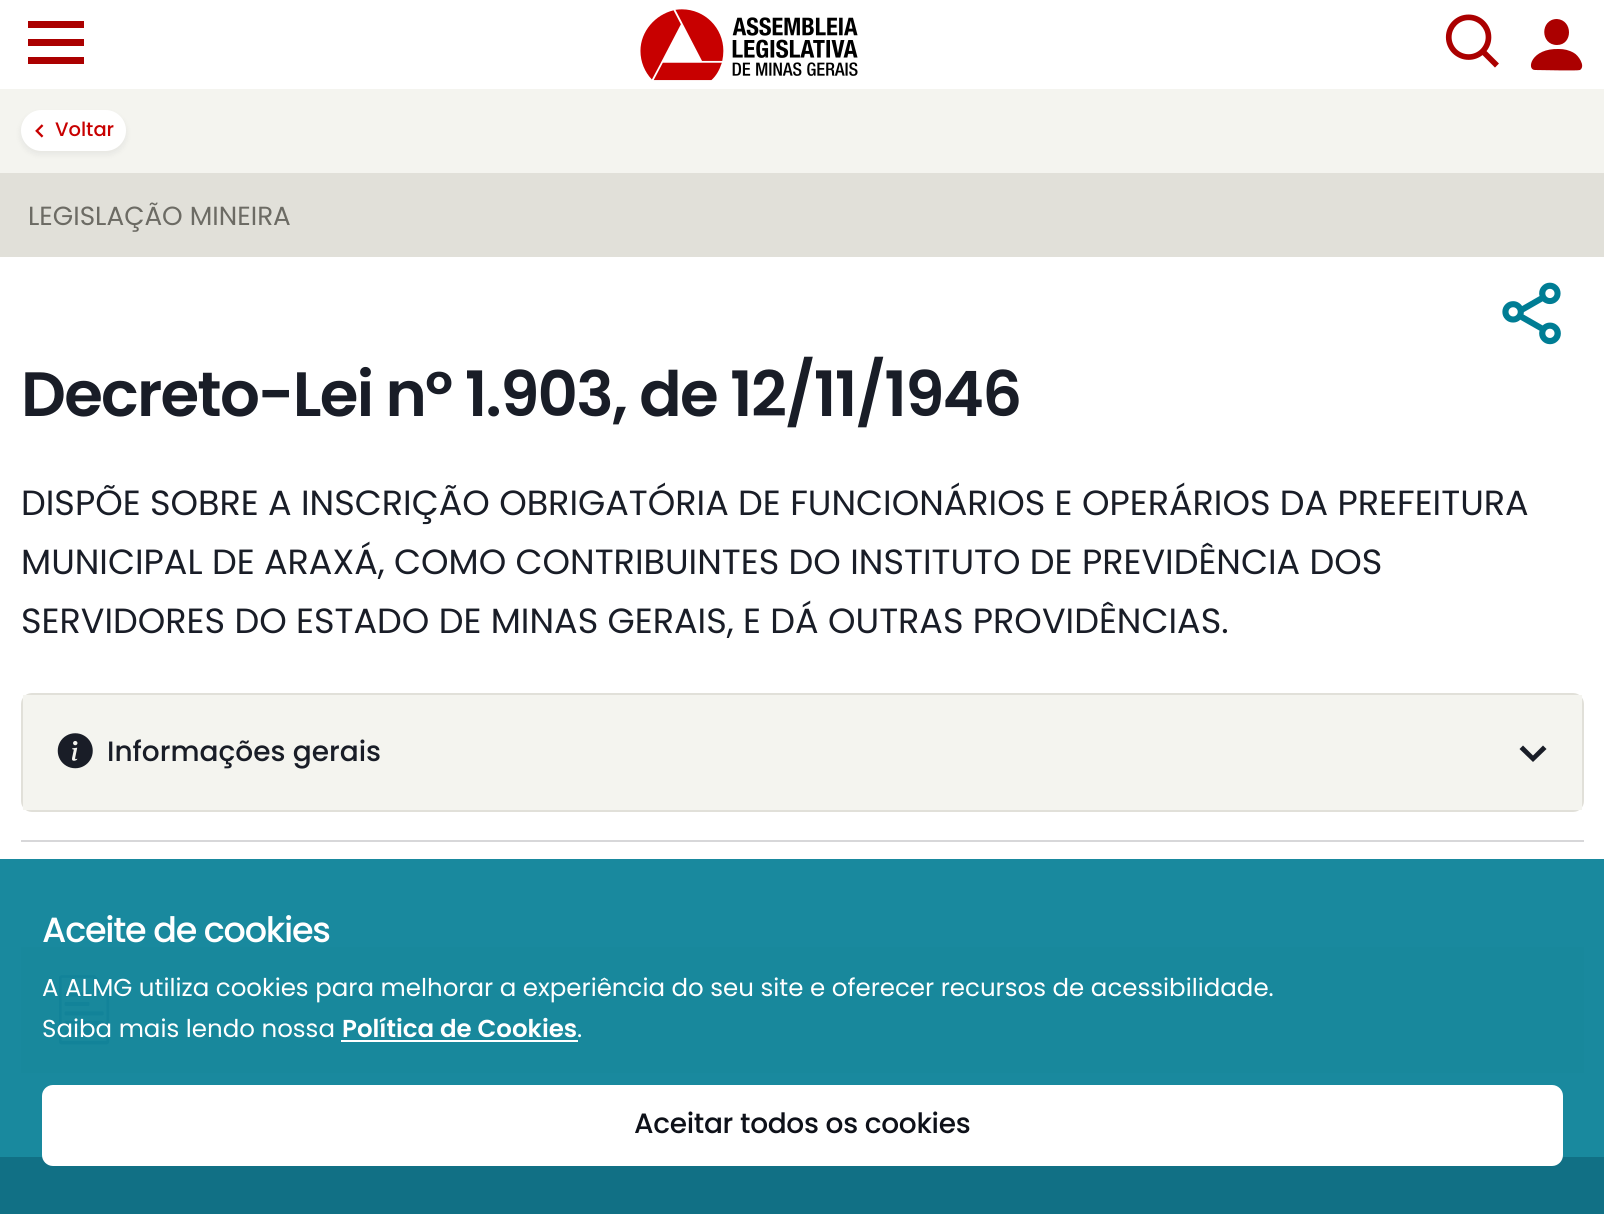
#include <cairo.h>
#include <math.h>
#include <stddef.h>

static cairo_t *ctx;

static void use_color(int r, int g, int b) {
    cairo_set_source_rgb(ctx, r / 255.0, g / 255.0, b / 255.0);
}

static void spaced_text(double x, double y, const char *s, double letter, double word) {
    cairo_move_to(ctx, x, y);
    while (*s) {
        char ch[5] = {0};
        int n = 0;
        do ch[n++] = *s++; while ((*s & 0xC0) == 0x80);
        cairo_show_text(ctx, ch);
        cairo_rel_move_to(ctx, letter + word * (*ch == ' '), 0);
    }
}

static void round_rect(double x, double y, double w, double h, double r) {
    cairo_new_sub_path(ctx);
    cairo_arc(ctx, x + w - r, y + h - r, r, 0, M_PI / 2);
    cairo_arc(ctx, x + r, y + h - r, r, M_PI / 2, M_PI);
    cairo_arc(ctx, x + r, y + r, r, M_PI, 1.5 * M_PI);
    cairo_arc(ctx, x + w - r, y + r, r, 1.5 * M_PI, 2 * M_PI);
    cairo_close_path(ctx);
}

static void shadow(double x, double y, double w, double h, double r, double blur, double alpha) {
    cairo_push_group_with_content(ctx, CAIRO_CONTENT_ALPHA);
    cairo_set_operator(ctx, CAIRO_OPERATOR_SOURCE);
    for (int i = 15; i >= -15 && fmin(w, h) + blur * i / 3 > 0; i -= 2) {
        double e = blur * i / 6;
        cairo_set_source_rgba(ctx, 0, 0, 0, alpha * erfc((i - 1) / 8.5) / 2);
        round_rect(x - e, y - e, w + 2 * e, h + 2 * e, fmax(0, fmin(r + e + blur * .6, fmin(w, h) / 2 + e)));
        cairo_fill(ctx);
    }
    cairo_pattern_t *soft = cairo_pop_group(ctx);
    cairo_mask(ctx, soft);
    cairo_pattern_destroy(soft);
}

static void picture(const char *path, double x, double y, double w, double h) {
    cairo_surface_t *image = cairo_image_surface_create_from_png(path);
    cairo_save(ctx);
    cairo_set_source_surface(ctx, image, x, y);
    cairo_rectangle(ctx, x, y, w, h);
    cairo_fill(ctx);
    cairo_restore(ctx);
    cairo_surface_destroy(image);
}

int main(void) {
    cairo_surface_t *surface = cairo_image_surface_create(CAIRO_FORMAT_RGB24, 1604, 1214);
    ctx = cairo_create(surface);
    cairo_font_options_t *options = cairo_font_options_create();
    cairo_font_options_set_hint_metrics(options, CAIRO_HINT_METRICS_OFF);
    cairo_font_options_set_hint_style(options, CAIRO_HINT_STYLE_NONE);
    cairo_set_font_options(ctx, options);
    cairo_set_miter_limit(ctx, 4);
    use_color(255, 255, 255);
    cairo_paint(ctx);
    use_color(244, 244, 239);
    cairo_rectangle(ctx, 0, 89, 1604, 84);
    cairo_fill(ctx);
    use_color(171, 0, 0);
    cairo_new_path(ctx);
    cairo_move_to(ctx, 28, 21);
    cairo_line_to(ctx, 84, 21);
    cairo_line_to(ctx, 84, 28);
    cairo_line_to(ctx, 28, 28);
    cairo_close_path(ctx);
    cairo_move_to(ctx, 28, 39);
    cairo_line_to(ctx, 84, 39);
    cairo_line_to(ctx, 84, 46);
    cairo_line_to(ctx, 28, 46);
    cairo_close_path(ctx);
    cairo_move_to(ctx, 28, 57);
    cairo_line_to(ctx, 84, 57);
    cairo_line_to(ctx, 84, 64);
    cairo_line_to(ctx, 28, 64);
    cairo_close_path(ctx);
    cairo_fill(ctx);
    picture("img1.png", 640, 9, 218, 72);
    picture("img2.png", 1445, 14, 54, 54);
    cairo_new_path(ctx);
    cairo_move_to(ctx, 1535, 70);
    cairo_curve_to(ctx, 1526, 70, 1531, 48, 1559, 49);
    cairo_curve_to(ctx, 1564, 49, 1569, 50, 1574, 53);
    cairo_curve_to(ctx, 1578, 55, 1586, 66, 1580, 70);
    cairo_curve_to(ctx, 1578, 71, 1541, 70, 1535, 70);
    cairo_close_path(ctx);
    cairo_move_to(ctx, 1557, 45);
    cairo_curve_to(ctx, 1573, 45, 1573, 20, 1557, 19);
    cairo_curve_to(ctx, 1540, 19, 1540, 45, 1557, 45);
    cairo_close_path(ctx);
    cairo_fill(ctx);
    use_color(14, 17, 25);
    shadow(21, 114, 105, 40, 20, 3.5, 0.07);
    use_color(255, 255, 255);
    round_rect(21, 110, 105, 41, 20.5);
    cairo_fill(ctx);
    picture("img3.png", 35, 124, 9, 14);
    cairo_select_font_face(ctx, "Poppins Medium", CAIRO_FONT_SLANT_NORMAL, CAIRO_FONT_WEIGHT_NORMAL);
    cairo_set_font_size(ctx, 19.5);
    use_color(200, 0, 0);
    cairo_move_to(ctx, 55, 136);
    cairo_show_text(ctx, "Voltar");
    use_color(225, 224, 217);
    cairo_rectangle(ctx, 0, 173, 1604, 84);
    cairo_fill(ctx);
    cairo_select_font_face(ctx, "Poppins", CAIRO_FONT_SLANT_NORMAL, CAIRO_FONT_WEIGHT_NORMAL);
    cairo_set_font_size(ctx, 26.25);
    use_color(108, 107, 100);
    cairo_move_to(ctx, 28, 225);
    cairo_show_text(ctx, "LEGISLAÇÃO MINEIRA");
    picture("img4.png", 1502, 282, 59, 63);
    cairo_select_font_face(ctx, "Poppins SemiBold", CAIRO_FONT_SLANT_NORMAL, CAIRO_FONT_WEIGHT_NORMAL);
    cairo_set_font_size(ctx, 62.6);
    use_color(25, 29, 39);
    spaced_text(21, 416, "Decreto-Lei nº 1.903, de 12/11/1946", -1.75, 0);
    cairo_select_font_face(ctx, "Poppins", CAIRO_FONT_SLANT_NORMAL, CAIRO_FONT_WEIGHT_NORMAL);
    cairo_set_font_size(ctx, 35);
    cairo_move_to(ctx, 21, 515);
    cairo_show_text(ctx, "DISPÕE SOBRE A INSCRIÇÃO OBRIGATÓRIA DE FUNCIONÁRIOS E OPERÁRIOS DA PREFEITURA");
    cairo_move_to(ctx, 21, 574);
    cairo_show_text(ctx, "MUNICIPAL DE ARAXÁ, COMO CONTRIBUINTES DO INSTITUTO DE PREVIDÊNCIA DOS");
    cairo_move_to(ctx, 21, 633);
    cairo_show_text(ctx, "SERVIDORES DO ESTADO DE MINAS GERAIS, E DÁ OUTRAS PROVIDÊNCIAS.");
    round_rect(22, 694, 1561, 117, 10);
    use_color(225, 224, 217);
    cairo_stroke(ctx);
    use_color(244, 244, 239);
    cairo_rectangle(ctx, 23, 695, 1559, 115);
    cairo_fill(ctx);
    picture("img5.png", 57, 733, 36, 36);
    cairo_select_font_face(ctx, "Poppins Medium", CAIRO_FONT_SLANT_NORMAL, CAIRO_FONT_WEIGHT_NORMAL);
    cairo_set_font_size(ctx, 28);
    use_color(25, 29, 39);
    cairo_move_to(ctx, 107, 761);
    cairo_show_text(ctx, "Informações gerais");
    cairo_new_path(ctx);
    cairo_move_to(ctx, 1543, 745.5);
    cairo_line_to(ctx, 1533, 755.5);
    cairo_line_to(ctx, 1523, 745.5);
    cairo_line_to(ctx, 1519.5, 749);
    cairo_line_to(ctx, 1533, 762);
    cairo_line_to(ctx, 1546.5, 749);
    cairo_close_path(ctx);
    cairo_fill(ctx);
    use_color(215, 215, 217);
    cairo_rectangle(ctx, 21, 840, 1563, 2);
    cairo_fill(ctx);
    use_color(244, 244, 239);
    cairo_rectangle(ctx, 21, 947, 1563, 126);
    cairo_fill(ctx);
    picture("img6.png", 58, 975, 52, 70);
    use_color(171, 0, 0);
    cairo_rectangle(ctx, 0, 1157, 1604, 57);
    cairo_fill(ctx);
    cairo_set_source_rgba(ctx, 0, 0.49, 0.58, 0.9);
    cairo_rectangle(ctx, 0, 859, 1604, 355);
    cairo_fill(ctx);
    cairo_set_font_size(ctx, 35);
    use_color(255, 255, 255);
    spaced_text(42, 942, "Aceite de cookies", -1.25, 0);
    cairo_select_font_face(ctx, "Poppins", CAIRO_FONT_SLANT_NORMAL, CAIRO_FONT_WEIGHT_NORMAL);
    cairo_set_font_size(ctx, 24.5);
    cairo_move_to(ctx, 42, 996);
    cairo_show_text(ctx, "A ALMG utiliza cookies para melhorar a experiência do seu site e oferecer recursos de acessibilidade.");
    cairo_move_to(ctx, 42, 1037);
    cairo_show_text(ctx, "Saiba mais lendo nossa");
    cairo_select_font_face(ctx, "Poppins SemiBold", CAIRO_FONT_SLANT_NORMAL, CAIRO_FONT_WEIGHT_NORMAL);
    cairo_move_to(ctx, 342, 1037);
    cairo_show_text(ctx, "Política de Cookies");
    cairo_rectangle(ctx, 341, 1040, 237, 2);
    cairo_fill(ctx);
    cairo_select_font_face(ctx, "Poppins", CAIRO_FONT_SLANT_NORMAL, CAIRO_FONT_WEIGHT_NORMAL);
    cairo_move_to(ctx, 577, 1037);
    cairo_show_text(ctx, ".");
    round_rect(43, 1086, 1519, 79, 10);
    cairo_fill_preserve(ctx);
    cairo_stroke(ctx);
    cairo_select_font_face(ctx, "Poppins Medium", CAIRO_FONT_SLANT_NORMAL, CAIRO_FONT_WEIGHT_NORMAL);
    cairo_set_font_size(ctx, 28);
    use_color(14, 17, 25);
    spaced_text(634, 1133, "Aceitar todos os cookies", -0.3, 0);
    cairo_surface_write_to_png(surface, "result.png");
    cairo_font_options_destroy(options);
    cairo_destroy(ctx);
    cairo_surface_destroy(surface);
    return 0;
}
